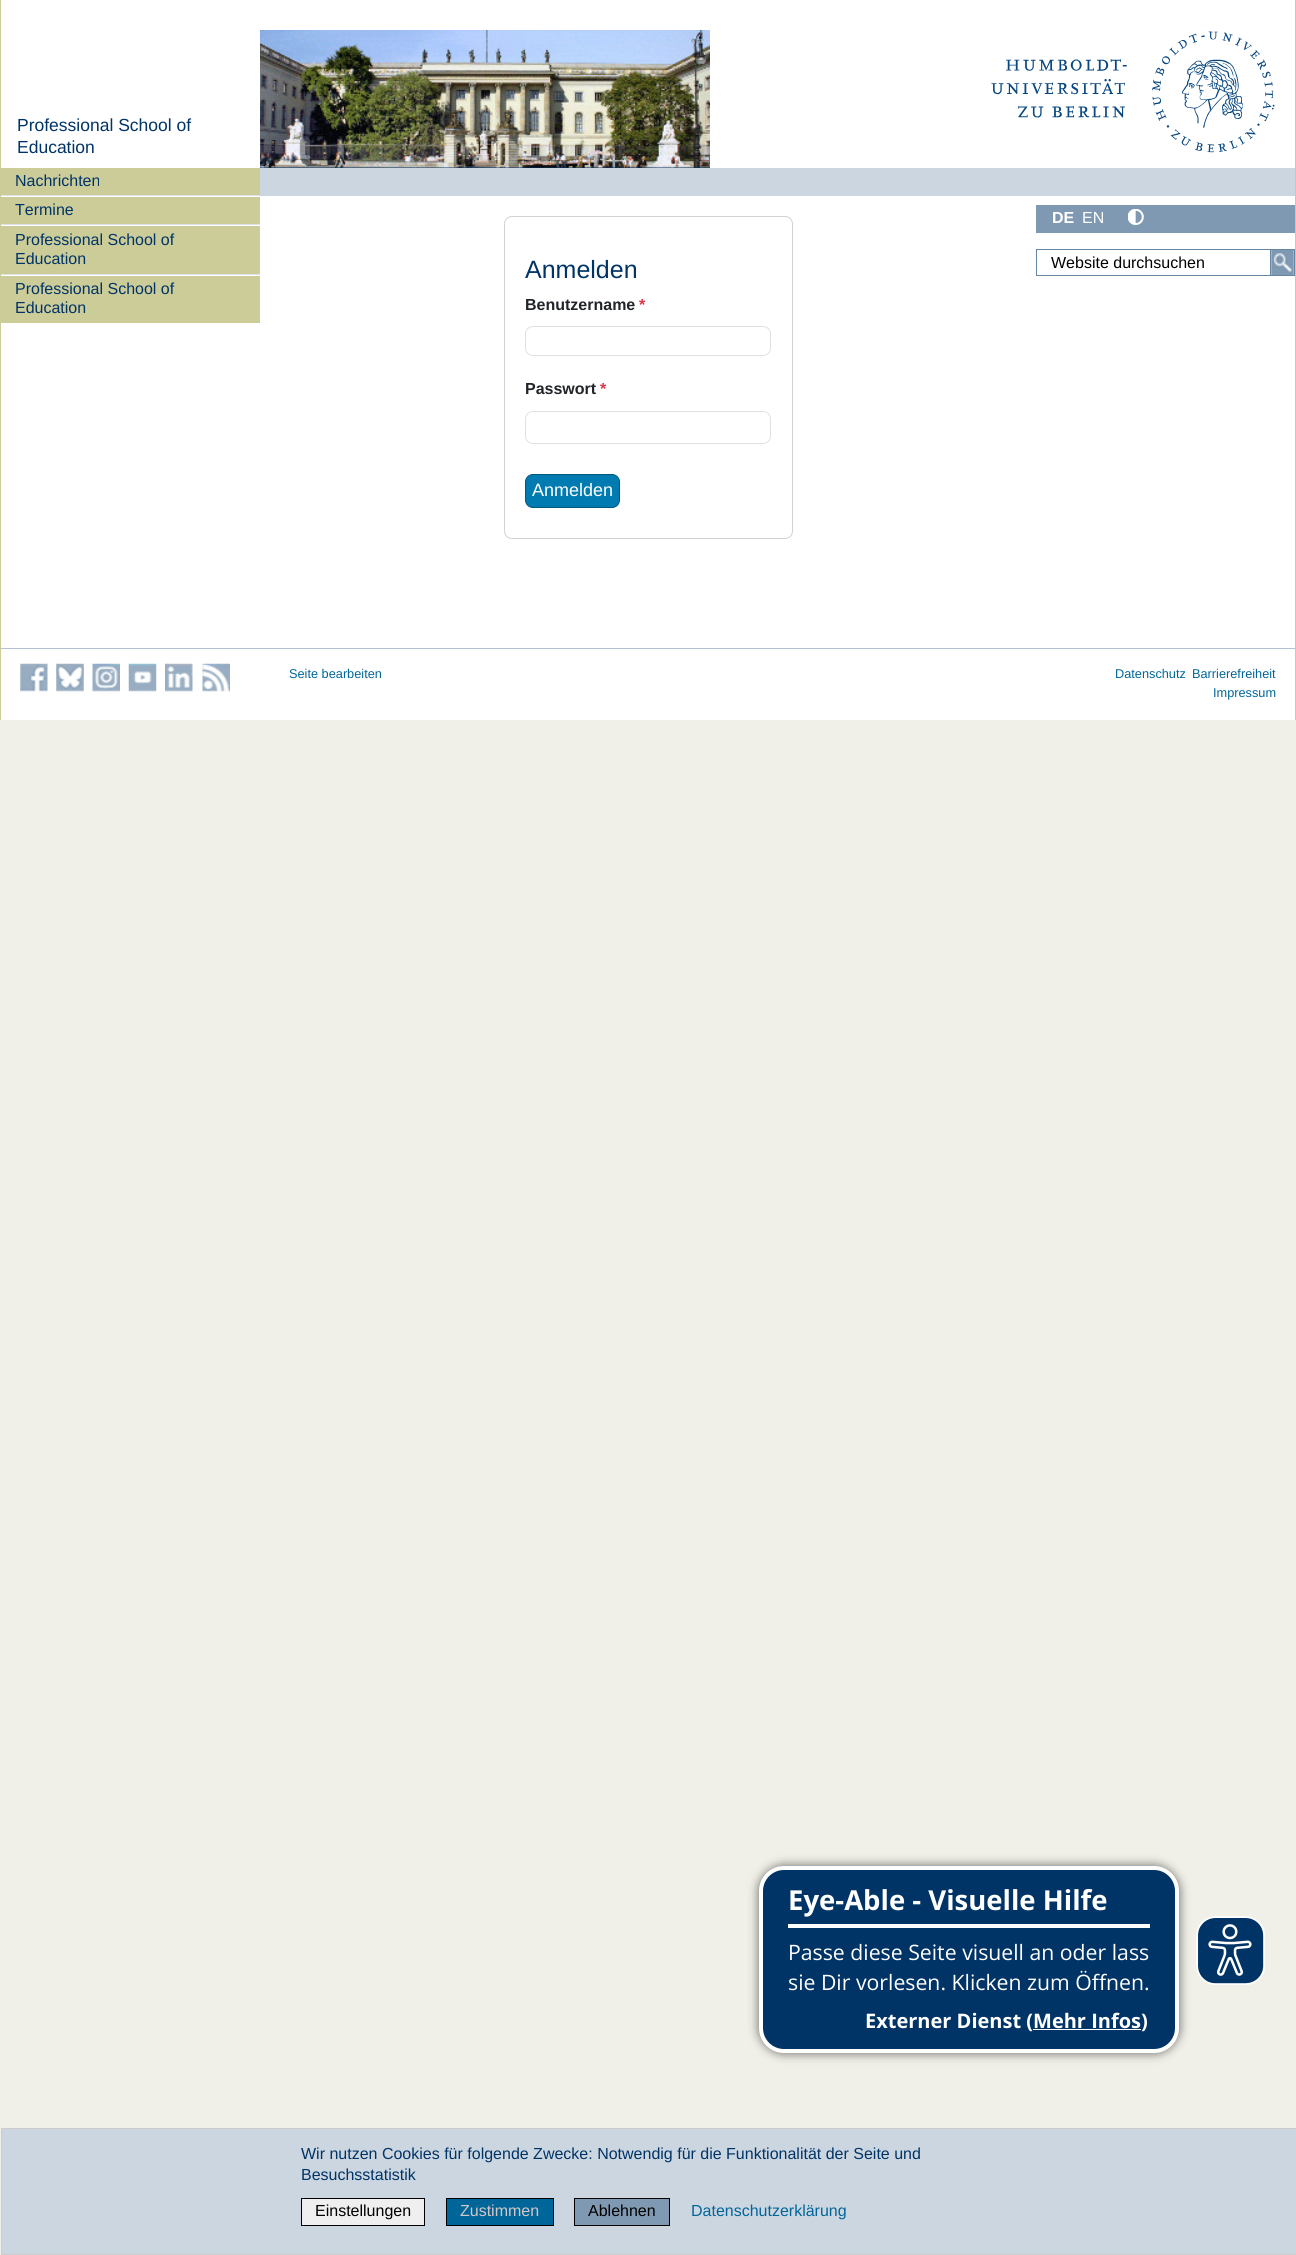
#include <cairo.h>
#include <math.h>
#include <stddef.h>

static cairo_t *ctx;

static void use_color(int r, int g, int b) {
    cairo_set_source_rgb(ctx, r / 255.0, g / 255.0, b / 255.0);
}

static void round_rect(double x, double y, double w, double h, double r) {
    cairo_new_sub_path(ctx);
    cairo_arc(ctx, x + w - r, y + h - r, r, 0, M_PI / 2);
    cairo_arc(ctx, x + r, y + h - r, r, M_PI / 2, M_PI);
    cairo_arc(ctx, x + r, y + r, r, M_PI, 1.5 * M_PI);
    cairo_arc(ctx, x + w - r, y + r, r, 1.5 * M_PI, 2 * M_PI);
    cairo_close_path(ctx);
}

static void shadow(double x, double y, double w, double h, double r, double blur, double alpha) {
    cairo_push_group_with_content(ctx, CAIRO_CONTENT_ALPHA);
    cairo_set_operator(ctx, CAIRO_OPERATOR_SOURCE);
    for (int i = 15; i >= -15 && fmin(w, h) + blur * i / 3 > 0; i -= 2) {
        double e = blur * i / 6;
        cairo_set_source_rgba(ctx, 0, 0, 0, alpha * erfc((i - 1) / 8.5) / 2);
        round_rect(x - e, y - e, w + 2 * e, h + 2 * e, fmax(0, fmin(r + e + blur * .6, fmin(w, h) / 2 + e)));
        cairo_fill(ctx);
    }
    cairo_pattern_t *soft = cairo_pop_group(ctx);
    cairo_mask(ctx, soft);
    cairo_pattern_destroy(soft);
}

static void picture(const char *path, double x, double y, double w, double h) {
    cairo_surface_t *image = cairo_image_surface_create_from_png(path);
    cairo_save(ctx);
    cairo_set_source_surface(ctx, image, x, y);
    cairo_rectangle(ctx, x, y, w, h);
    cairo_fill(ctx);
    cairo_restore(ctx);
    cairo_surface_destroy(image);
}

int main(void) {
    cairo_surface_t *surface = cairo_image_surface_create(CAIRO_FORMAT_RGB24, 1296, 2255);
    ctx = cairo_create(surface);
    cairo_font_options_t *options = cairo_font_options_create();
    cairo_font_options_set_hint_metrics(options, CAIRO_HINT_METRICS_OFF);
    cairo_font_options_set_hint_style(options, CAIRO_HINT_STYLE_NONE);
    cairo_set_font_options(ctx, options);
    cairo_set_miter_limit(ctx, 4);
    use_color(240, 240, 232);
    cairo_paint(ctx);
    use_color(255, 255, 255);
    cairo_rectangle(ctx, 1, 0, 1294, 720);
    cairo_fill(ctx);
    use_color(0, 51, 102);
    cairo_rectangle(ctx, 260, 167, 450, 1);
    cairo_fill(ctx);
    picture("img1.png", 260, 30, 450, 138);
    picture("img2.png", 991, 31, 284, 122);
    use_color(204, 204, 153);
    cairo_rectangle(ctx, 1295, 0, 1, 720);
    cairo_fill(ctx);
    cairo_rectangle(ctx, 0, 0, 1, 720);
    cairo_fill(ctx);
    cairo_select_font_face(ctx, "Liberation Sans", CAIRO_FONT_SLANT_NORMAL, CAIRO_FONT_WEIGHT_NORMAL);
    cairo_set_font_size(ctx, 17.5);
    use_color(0, 51, 102);
    cairo_move_to(ctx, 17, 131);
    cairo_show_text(ctx, "Professional School of");
    cairo_move_to(ctx, 17, 153);
    cairo_show_text(ctx, "Education");
    use_color(204, 204, 153);
    cairo_rectangle(ctx, 1, 168, 259, 27);
    cairo_fill(ctx);
    cairo_set_font_size(ctx, 16);
    use_color(0, 51, 102);
    cairo_move_to(ctx, 15, 186);
    cairo_show_text(ctx, "Nachrichten");
    use_color(204, 204, 153);
    cairo_rectangle(ctx, 1, 197, 259, 27);
    cairo_fill(ctx);
    use_color(222, 226, 230);
    cairo_rectangle(ctx, 1, 195, 259, 1);
    cairo_fill(ctx);
    use_color(0, 51, 102);
    cairo_move_to(ctx, 15, 215);
    cairo_show_text(ctx, "Termine");
    use_color(204, 204, 153);
    cairo_rectangle(ctx, 1, 226, 259, 48);
    cairo_fill(ctx);
    use_color(222, 226, 230);
    cairo_rectangle(ctx, 1, 224, 259, 1);
    cairo_fill(ctx);
    use_color(0, 51, 102);
    cairo_move_to(ctx, 15, 245);
    cairo_show_text(ctx, "Professional School of");
    cairo_move_to(ctx, 15, 264);
    cairo_show_text(ctx, "Education");
    use_color(204, 204, 153);
    cairo_rectangle(ctx, 1, 276, 259, 47);
    cairo_fill(ctx);
    use_color(222, 226, 230);
    cairo_rectangle(ctx, 1, 274, 259, 1);
    cairo_fill(ctx);
    use_color(0, 51, 102);
    cairo_move_to(ctx, 15, 294);
    cairo_show_text(ctx, "Professional School of");
    cairo_move_to(ctx, 15, 313);
    cairo_show_text(ctx, "Education");
    use_color(204, 214, 224);
    cairo_rectangle(ctx, 260, 168, 1035, 28);
    cairo_fill(ctx);
    use_color(128, 153, 178);
    cairo_rectangle(ctx, 1036, 205, 259, 28);
    cairo_fill(ctx);
    cairo_select_font_face(ctx, "Liberation Sans", CAIRO_FONT_SLANT_NORMAL, CAIRO_FONT_WEIGHT_BOLD);
    use_color(255, 255, 255);
    cairo_move_to(ctx, 1052, 223);
    cairo_show_text(ctx, "DE");
    cairo_select_font_face(ctx, "Liberation Sans", CAIRO_FONT_SLANT_NORMAL, CAIRO_FONT_WEIGHT_NORMAL);
    cairo_move_to(ctx, 1082, 223);
    cairo_show_text(ctx, "EN");
    picture("img3.png", 1128, 209, 16, 16);
    cairo_rectangle(ctx, 1036.5, 249.5, 258, 26);
    use_color(102, 133, 163);
    cairo_set_line_width(ctx, 1);
    cairo_stroke(ctx);
    use_color(0, 0, 0);
    cairo_move_to(ctx, 1051, 268);
    cairo_show_text(ctx, "Website durchsuchen");
    cairo_rectangle(ctx, 1270.5, 249.5, 24, 26);
    use_color(102, 133, 163);
    cairo_stroke(ctx);
    picture("img4.png", 1271, 250, 23, 25);
    round_rect(504.5, 216.5, 288, 322, 7.5);
    use_color(210, 210, 210);
    cairo_stroke(ctx);
    cairo_set_font_size(ctx, 25);
    use_color(0, 51, 102);
    cairo_move_to(ctx, 525, 278);
    cairo_show_text(ctx, "Anmelden");
    cairo_select_font_face(ctx, "Liberation Sans", CAIRO_FONT_SLANT_NORMAL, CAIRO_FONT_WEIGHT_BOLD);
    cairo_set_font_size(ctx, 16);
    use_color(33, 37, 41);
    cairo_move_to(ctx, 525, 310);
    cairo_show_text(ctx, "Benutzername");
    use_color(220, 53, 69);
    cairo_move_to(ctx, 639, 310);
    cairo_show_text(ctx, "*");
    round_rect(525.5, 326.5, 245, 29, 7.5);
    use_color(222, 226, 230);
    cairo_stroke(ctx);
    use_color(33, 37, 41);
    cairo_move_to(ctx, 525, 394);
    cairo_show_text(ctx, "Passwort");
    use_color(220, 53, 69);
    cairo_move_to(ctx, 600, 394);
    cairo_show_text(ctx, "*");
    round_rect(525.5, 411.5, 245, 32, 7.5);
    use_color(222, 226, 230);
    cairo_stroke(ctx);
    use_color(0, 123, 177);
    round_rect(525.5, 474.5, 94, 33, 7.5);
    cairo_fill_preserve(ctx);
    use_color(0, 88, 126);
    cairo_stroke(ctx);
    cairo_select_font_face(ctx, "Liberation Sans", CAIRO_FONT_SLANT_NORMAL, CAIRO_FONT_WEIGHT_NORMAL);
    cairo_set_font_size(ctx, 18);
    use_color(255, 255, 255);
    cairo_move_to(ctx, 532, 496);
    cairo_show_text(ctx, "Anmelden");
    use_color(178, 193, 209);
    cairo_rectangle(ctx, 1, 648, 1294, 1);
    cairo_fill(ctx);
    picture("img5.png", 20, 663, 28, 29);
    picture("img6.png", 56, 663, 28, 29);
    picture("img7.png", 92, 663, 28, 29);
    picture("img8.png", 128, 663, 29, 29);
    picture("img9.png", 165, 663, 28, 29);
    picture("img10.png", 202, 663, 28, 29);
    cairo_set_font_size(ctx, 12.75);
    use_color(0, 102, 153);
    cairo_move_to(ctx, 289, 678);
    cairo_show_text(ctx, "Seite bearbeiten");
    cairo_move_to(ctx, 1115, 678);
    cairo_show_text(ctx, "Datenschutz");
    cairo_move_to(ctx, 1192, 678);
    cairo_show_text(ctx, "Barrierefreiheit");
    cairo_move_to(ctx, 1213, 697);
    cairo_show_text(ctx, "Impressum");
    use_color(204, 214, 224);
    cairo_rectangle(ctx, 1.5, 2128.5, 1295, 126);
    cairo_fill_preserve(ctx);
    use_color(204, 204, 204);
    cairo_stroke(ctx);
    cairo_set_font_size(ctx, 16);
    use_color(0, 51, 102);
    cairo_move_to(ctx, 301, 2159);
    cairo_show_text(ctx, "Wir nutzen Cookies für folgende Zwecke: Notwendig für die Funktionalität der Seite und");
    cairo_move_to(ctx, 301, 2180);
    cairo_show_text(ctx, "Besuchsstatistik");
    use_color(239, 239, 239);
    cairo_rectangle(ctx, 301.5, 2198.5, 123, 27);
    cairo_fill_preserve(ctx);
    use_color(0, 0, 0);
    cairo_stroke(ctx);
    cairo_move_to(ctx, 315, 2216);
    cairo_show_text(ctx, "Einstellungen");
    use_color(0, 102, 153);
    cairo_rectangle(ctx, 446.5, 2198.5, 107, 27);
    cairo_fill_preserve(ctx);
    use_color(0, 0, 0);
    cairo_stroke(ctx);
    use_color(213, 199, 199);
    cairo_move_to(ctx, 460, 2216);
    cairo_show_text(ctx, "Zustimmen");
    use_color(128, 153, 178);
    cairo_rectangle(ctx, 574.5, 2198.5, 95, 27);
    cairo_fill_preserve(ctx);
    use_color(0, 0, 0);
    cairo_stroke(ctx);
    cairo_move_to(ctx, 588, 2216);
    cairo_show_text(ctx, "Ablehnen");
    use_color(0, 102, 153);
    cairo_move_to(ctx, 691, 2216);
    cairo_show_text(ctx, "Datenschutzerklärung");
    use_color(0, 0, 0);
    shadow(758, 1865, 422, 189, 26, 5, 0.5);
    use_color(0, 51, 102);
    round_rect(761, 1868, 416, 183, 23);
    cairo_fill_preserve(ctx);
    use_color(255, 255, 255);
    cairo_set_line_width(ctx, 4);
    cairo_stroke(ctx);
    cairo_rectangle(ctx, 788, 1924, 362, 4);
    cairo_fill(ctx);
    cairo_select_font_face(ctx, "Open Sans", CAIRO_FONT_SLANT_NORMAL, CAIRO_FONT_WEIGHT_BOLD);
    cairo_set_font_size(ctx, 27.5);
    cairo_move_to(ctx, 788, 1910);
    cairo_show_text(ctx, "Eye-Able - Visuelle Hilfe");
    cairo_select_font_face(ctx, "Open Sans", CAIRO_FONT_SLANT_NORMAL, CAIRO_FONT_WEIGHT_NORMAL);
    cairo_set_font_size(ctx, 21.25);
    cairo_move_to(ctx, 788, 1960);
    cairo_show_text(ctx, "Passe diese Seite visuell an oder lass");
    cairo_move_to(ctx, 788, 1990);
    cairo_show_text(ctx, "sie Dir vorlesen. Klicken zum Öffnen.");
    cairo_select_font_face(ctx, "Open Sans", CAIRO_FONT_SLANT_NORMAL, CAIRO_FONT_WEIGHT_BOLD);
    cairo_set_font_size(ctx, 20);
    cairo_move_to(ctx, 865, 2028);
    cairo_show_text(ctx, "Externer Dienst (Mehr Infos)");
    cairo_rectangle(ctx, 1033, 2029, 108, 1);
    cairo_fill(ctx);
    picture("img11.png", 1196, 1916, 69, 69);
    cairo_surface_write_to_png(surface, "result.png");
    cairo_font_options_destroy(options);
    cairo_destroy(ctx);
    cairo_surface_destroy(surface);
    return 0;
}
